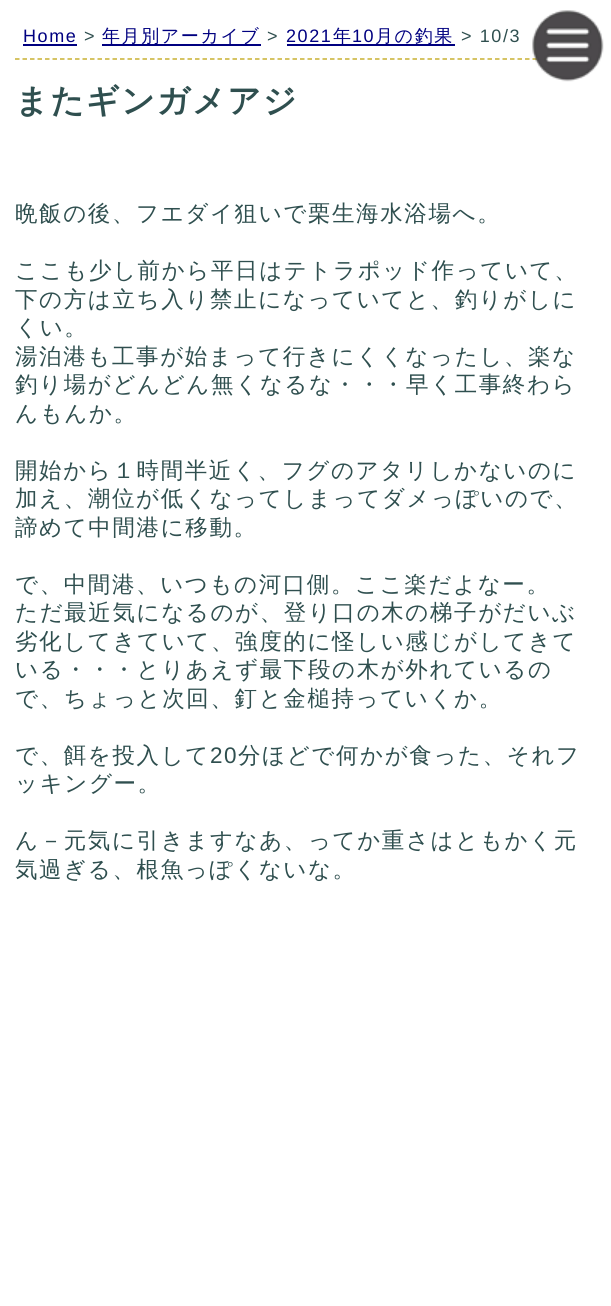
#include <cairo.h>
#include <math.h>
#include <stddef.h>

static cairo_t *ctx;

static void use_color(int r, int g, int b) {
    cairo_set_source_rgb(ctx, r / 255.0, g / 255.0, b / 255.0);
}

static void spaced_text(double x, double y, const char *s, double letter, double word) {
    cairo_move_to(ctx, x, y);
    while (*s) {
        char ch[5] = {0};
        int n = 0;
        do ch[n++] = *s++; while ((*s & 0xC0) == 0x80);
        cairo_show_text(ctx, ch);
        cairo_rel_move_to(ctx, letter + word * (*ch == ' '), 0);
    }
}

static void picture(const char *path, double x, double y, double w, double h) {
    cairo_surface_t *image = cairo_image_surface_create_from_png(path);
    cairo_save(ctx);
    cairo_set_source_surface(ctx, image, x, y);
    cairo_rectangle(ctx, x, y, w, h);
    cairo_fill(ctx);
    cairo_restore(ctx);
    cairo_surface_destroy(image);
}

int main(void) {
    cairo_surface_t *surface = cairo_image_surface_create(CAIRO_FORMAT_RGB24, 611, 1306);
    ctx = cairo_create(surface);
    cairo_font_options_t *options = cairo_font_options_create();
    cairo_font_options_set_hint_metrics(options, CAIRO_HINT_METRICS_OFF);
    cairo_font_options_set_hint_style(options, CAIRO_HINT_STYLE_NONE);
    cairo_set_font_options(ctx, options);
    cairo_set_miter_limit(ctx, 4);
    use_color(255, 255, 255);
    cairo_paint(ctx);
    cairo_new_path(ctx);
    cairo_move_to(ctx, 15, 59);
    cairo_line_to(ctx, 597, 59);
    use_color(200, 176, 50);
    cairo_set_line_width(ctx, 1.5);
    cairo_set_dash(ctx, (double[]){4.5, 3}, 2, 0);
    cairo_stroke(ctx);
    picture("img1.png", 532, 10, 72, 72);
    cairo_select_font_face(ctx, "Liberation Sans", CAIRO_FONT_SLANT_NORMAL, CAIRO_FONT_WEIGHT_NORMAL);
    cairo_set_font_size(ctx, 18);
    use_color(0, 0, 128);
    spaced_text(23, 42, "Home", 1.6, 0);
    cairo_rectangle(ctx, 23, 44, 54, 2);
    cairo_fill(ctx);
    use_color(47, 79, 79);
    spaced_text(84, 42, ">", 1.6, 0);
    use_color(0, 0, 128);
    cairo_rectangle(ctx, 102, 44, 159, 2);
    cairo_fill(ctx);
    cairo_select_font_face(ctx, "WenQuanYi Zen Hei Medium", CAIRO_FONT_SLANT_NORMAL, CAIRO_FONT_WEIGHT_NORMAL);
    spaced_text(102, 42, "年月別アーカイブ", 1.6, 0);
    cairo_select_font_face(ctx, "Liberation Sans", CAIRO_FONT_SLANT_NORMAL, CAIRO_FONT_WEIGHT_NORMAL);
    use_color(47, 79, 79);
    spaced_text(267, 42, ">", 1.6, 0);
    use_color(0, 0, 128);
    spaced_text(286, 42, "2021", 1.6, 0);
    cairo_rectangle(ctx, 287, 44, 168, 2);
    cairo_fill(ctx);
    cairo_select_font_face(ctx, "WenQuanYi Zen Hei Medium", CAIRO_FONT_SLANT_NORMAL, CAIRO_FONT_WEIGHT_NORMAL);
    spaced_text(333, 42, "年", 1.6, 0);
    cairo_select_font_face(ctx, "Liberation Sans", CAIRO_FONT_SLANT_NORMAL, CAIRO_FONT_WEIGHT_NORMAL);
    spaced_text(352, 42, "10", 1.6, 0);
    cairo_select_font_face(ctx, "WenQuanYi Zen Hei Medium", CAIRO_FONT_SLANT_NORMAL, CAIRO_FONT_WEIGHT_NORMAL);
    spaced_text(375, 42, "月の釣果", 1.6, 0);
    cairo_select_font_face(ctx, "Liberation Sans", CAIRO_FONT_SLANT_NORMAL, CAIRO_FONT_WEIGHT_NORMAL);
    use_color(47, 79, 79);
    spaced_text(461, 42, "> 10/3", 1.6, 0);
    cairo_select_font_face(ctx, "WenQuanYi Zen Hei", CAIRO_FONT_SLANT_NORMAL, CAIRO_FONT_WEIGHT_BOLD);
    cairo_set_font_size(ctx, 33);
    spaced_text(15, 112, "またギンガメアジ", 1.6, 0);
    cairo_select_font_face(ctx, "WenQuanYi Zen Hei Medium", CAIRO_FONT_SLANT_NORMAL, CAIRO_FONT_WEIGHT_NORMAL);
    cairo_set_font_size(ctx, 22.5);
    spaced_text(15, 221, "晩飯の後、フエダイ狙いで栗生海水浴場へ。", 1.6, 0);
    spaced_text(15, 278, "ここも少し前から平日はテトラポッド作っていて、", 1.6, 0);
    spaced_text(15, 307, "下の方は立ち入り禁止になっていてと、釣りがしに", 1.6, 0);
    spaced_text(15, 335, "くい。", 1.6, 0);
    spaced_text(15, 364, "湯泊港も工事が始まって行きにくくなったし、楽な", 1.6, 0);
    spaced_text(15, 392, "釣り場がどんどん無くなるな・・・早く工事終わら", 1.6, 0);
    spaced_text(15, 421, "んもんか。", 1.6, 0);
    spaced_text(15, 478, "開始から１時間半近く、フグのアタリしかないのに", 1.6, 0);
    spaced_text(15, 506, "加え、潮位が低くなってしまってダメっぽいので、", 1.6, 0);
    spaced_text(15, 535, "諦めて中間港に移動。", 1.6, 0);
    spaced_text(15, 592, "で、中間港、いつもの河口側。ここ楽だよなー。", 1.6, 0);
    spaced_text(15, 620, "ただ最近気になるのが、登り口の木の梯子がだいぶ", 1.6, 0);
    spaced_text(15, 649, "劣化してきていて、強度的に怪しい感じがしてきて", 1.6, 0);
    spaced_text(15, 677, "いる・・・とりあえず最下段の木が外れているの", 1.6, 0);
    spaced_text(15, 706, "で、ちょっと次回、釘と金槌持っていくか。", 1.6, 0);
    spaced_text(15, 763, "で、餌を投入して", 1.6, 0);
    cairo_select_font_face(ctx, "Liberation Sans", CAIRO_FONT_SLANT_NORMAL, CAIRO_FONT_WEIGHT_NORMAL);
    spaced_text(210, 763, "20", 1.6, 0);
    cairo_select_font_face(ctx, "WenQuanYi Zen Hei Medium", CAIRO_FONT_SLANT_NORMAL, CAIRO_FONT_WEIGHT_NORMAL);
    spaced_text(238, 763, "分ほどで何かが食った、それフ", 1.6, 0);
    spaced_text(15, 791, "ッキングー。", 1.6, 0);
    spaced_text(15, 848, "ん－元気に引きますなあ、ってか重さはともかく元", 1.6, 0);
    spaced_text(15, 877, "気過ぎる、根魚っぽくないな。", 1.6, 0);
    cairo_surface_write_to_png(surface, "result.png");
    cairo_font_options_destroy(options);
    cairo_destroy(ctx);
    cairo_surface_destroy(surface);
    return 0;
}
